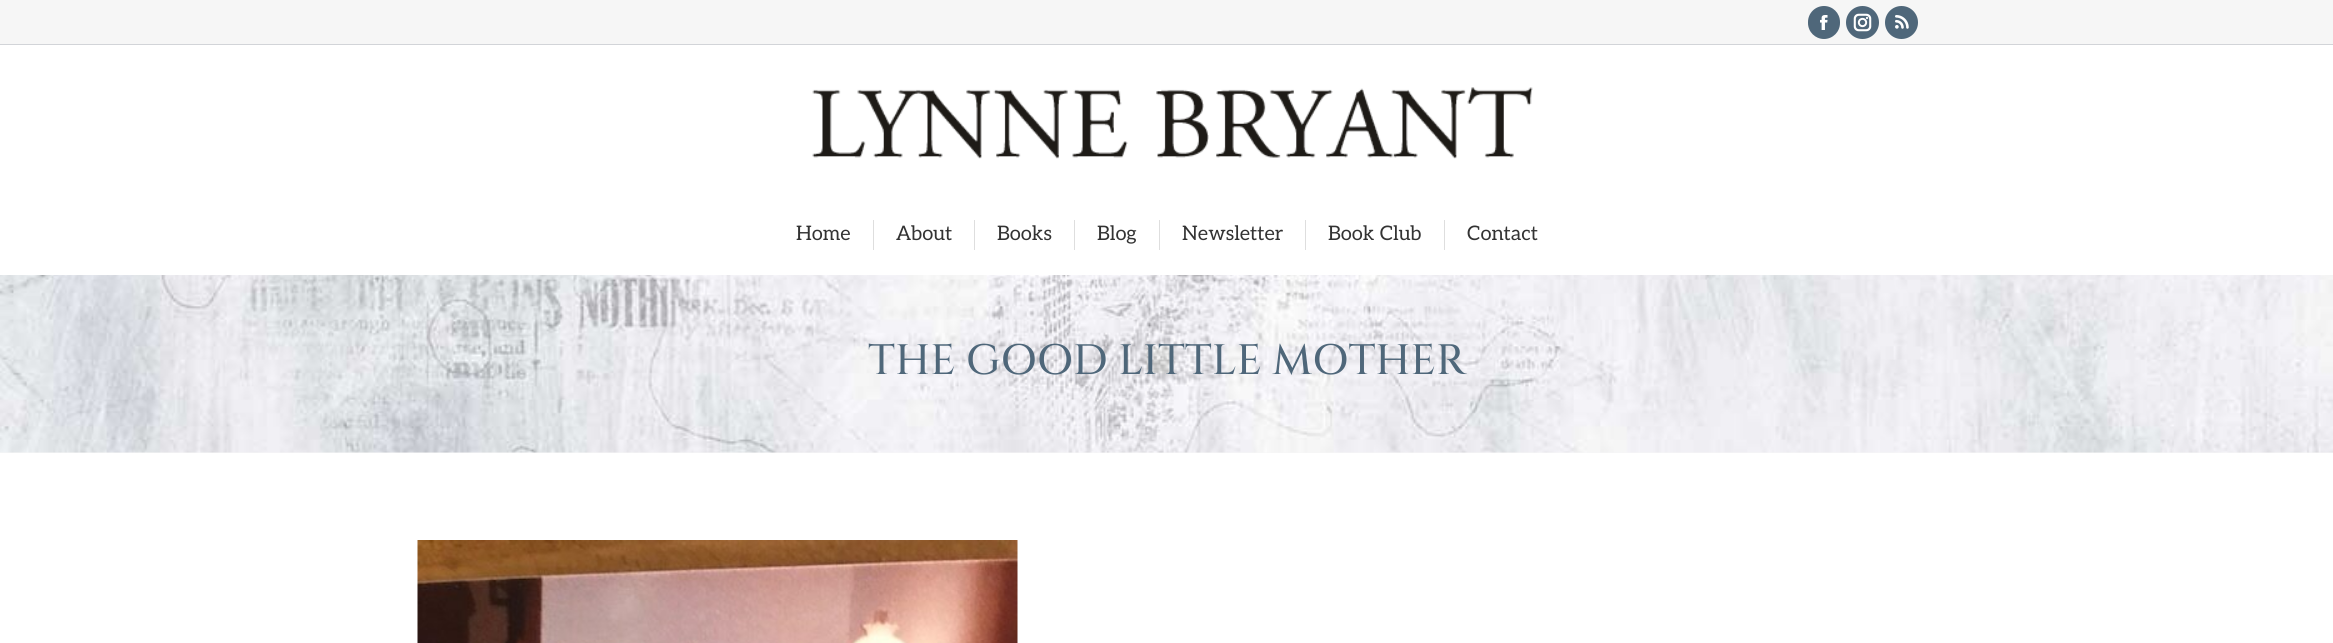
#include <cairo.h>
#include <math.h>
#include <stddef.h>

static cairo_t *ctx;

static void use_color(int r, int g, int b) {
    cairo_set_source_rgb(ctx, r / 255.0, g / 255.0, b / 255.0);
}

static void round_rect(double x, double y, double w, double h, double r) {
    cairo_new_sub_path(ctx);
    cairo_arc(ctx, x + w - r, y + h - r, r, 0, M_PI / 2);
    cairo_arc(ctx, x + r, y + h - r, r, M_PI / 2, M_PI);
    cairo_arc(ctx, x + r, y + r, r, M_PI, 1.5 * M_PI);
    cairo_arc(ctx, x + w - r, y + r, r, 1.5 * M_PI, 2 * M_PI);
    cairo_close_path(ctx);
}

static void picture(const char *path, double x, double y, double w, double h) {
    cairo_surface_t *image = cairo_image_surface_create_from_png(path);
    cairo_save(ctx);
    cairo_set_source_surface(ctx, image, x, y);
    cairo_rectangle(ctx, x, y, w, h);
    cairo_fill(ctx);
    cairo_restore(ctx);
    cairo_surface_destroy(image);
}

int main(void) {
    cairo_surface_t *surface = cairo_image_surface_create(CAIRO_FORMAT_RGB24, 2333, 643);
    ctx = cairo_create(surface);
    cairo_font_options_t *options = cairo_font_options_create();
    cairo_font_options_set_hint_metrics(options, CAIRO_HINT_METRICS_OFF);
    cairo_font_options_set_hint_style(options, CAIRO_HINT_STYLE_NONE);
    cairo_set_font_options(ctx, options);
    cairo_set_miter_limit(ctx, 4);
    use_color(255, 255, 255);
    cairo_paint(ctx);
    use_color(246, 246, 246);
    cairo_rectangle(ctx, 0, 0, 2333, 44);
    cairo_fill(ctx);
    use_color(79, 103, 122);
    round_rect(1808, 6, 32, 33, 16);
    cairo_fill(ctx);
    picture("img1.png", 1820, 15, 8, 15);
    cairo_arc(ctx, 1862.5, 22.5, 16.5, 0, 2 * M_PI);
    cairo_fill(ctx);
    picture("img2.png", 1853, 13, 19, 19);
    cairo_arc(ctx, 1901.5, 22.5, 16.5, 0, 2 * M_PI);
    cairo_fill(ctx);
    picture("img3.png", 1895, 15, 14, 14);
    use_color(210, 212, 216);
    cairo_rectangle(ctx, 0, 44, 2333, 1);
    cairo_fill(ctx);
    picture("img4.png", 812, 87, 721, 72);
    cairo_select_font_face(ctx, "Aleo", CAIRO_FONT_SLANT_NORMAL, CAIRO_FONT_WEIGHT_NORMAL);
    cairo_set_font_size(ctx, 20);
    use_color(51, 51, 51);
    cairo_move_to(ctx, 796, 240);
    cairo_show_text(ctx, "Home");
    use_color(222, 222, 222);
    cairo_rectangle(ctx, 873, 220, 1, 30);
    cairo_fill(ctx);
    use_color(51, 51, 51);
    cairo_move_to(ctx, 896, 240);
    cairo_show_text(ctx, "About");
    use_color(222, 222, 222);
    cairo_rectangle(ctx, 974, 220, 1, 30);
    cairo_fill(ctx);
    use_color(51, 51, 51);
    cairo_move_to(ctx, 997, 240);
    cairo_show_text(ctx, "Books");
    use_color(222, 222, 222);
    cairo_rectangle(ctx, 1074, 220, 1, 30);
    cairo_fill(ctx);
    use_color(51, 51, 51);
    cairo_move_to(ctx, 1097, 240);
    cairo_show_text(ctx, "Blog");
    use_color(222, 222, 222);
    cairo_rectangle(ctx, 1159, 220, 1, 30);
    cairo_fill(ctx);
    use_color(51, 51, 51);
    cairo_move_to(ctx, 1182, 240);
    cairo_show_text(ctx, "Newsletter");
    use_color(222, 222, 222);
    cairo_rectangle(ctx, 1305, 220, 1, 30);
    cairo_fill(ctx);
    use_color(51, 51, 51);
    cairo_move_to(ctx, 1328, 240);
    cairo_show_text(ctx, "Book Club");
    use_color(222, 222, 222);
    cairo_rectangle(ctx, 1444, 220, 1, 30);
    cairo_fill(ctx);
    use_color(51, 51, 51);
    cairo_move_to(ctx, 1467, 240);
    cairo_show_text(ctx, "Contact");
    use_color(246, 246, 246);
    cairo_rectangle(ctx, 0, 452, 2333, 1);
    cairo_fill(ctx);
    picture("img5.png", 0, 275, 2333, 178);
    cairo_select_font_face(ctx, "Cinzel Medium", CAIRO_FONT_SLANT_NORMAL, CAIRO_FONT_WEIGHT_NORMAL);
    cairo_set_font_size(ctx, 42.5);
    use_color(79, 103, 122);
    cairo_move_to(ctx, 868, 374);
    cairo_show_text(ctx, "THE GOOD LITTLE MOTHER");
    picture("img6.png", 417, 540, 601, 103);
    cairo_surface_write_to_png(surface, "result.png");
    cairo_font_options_destroy(options);
    cairo_destroy(ctx);
    cairo_surface_destroy(surface);
    return 0;
}
